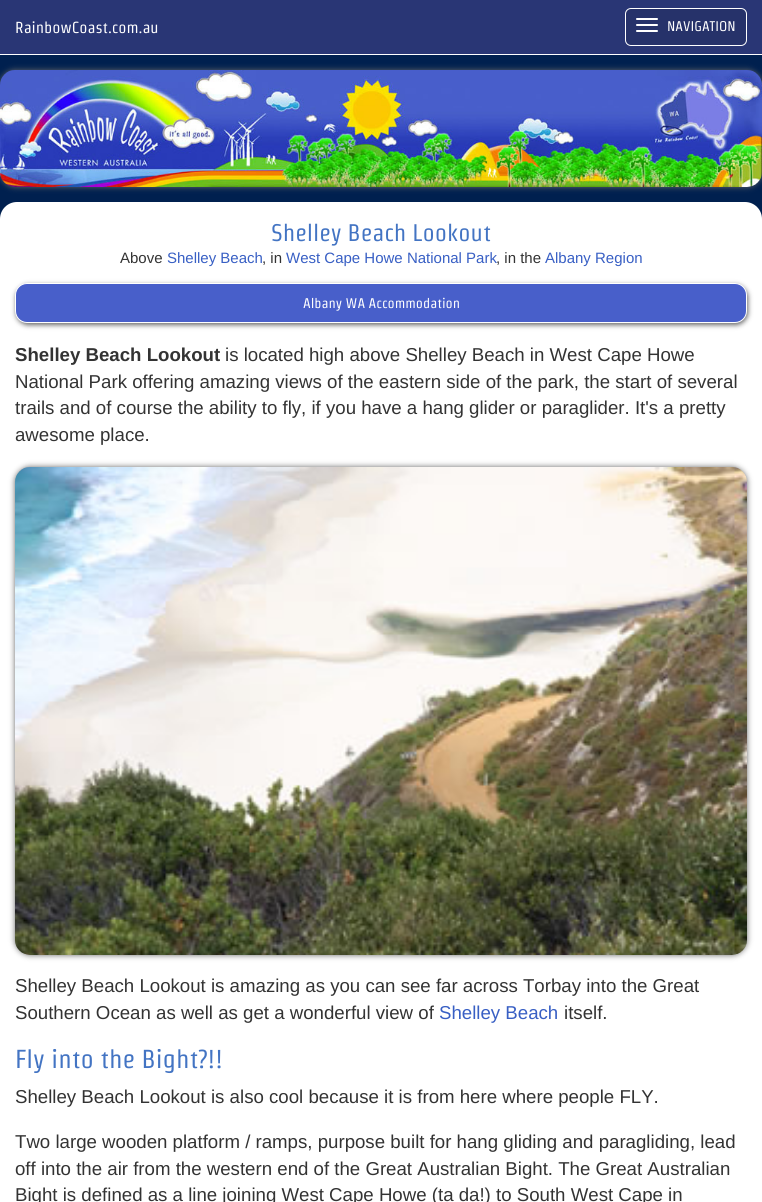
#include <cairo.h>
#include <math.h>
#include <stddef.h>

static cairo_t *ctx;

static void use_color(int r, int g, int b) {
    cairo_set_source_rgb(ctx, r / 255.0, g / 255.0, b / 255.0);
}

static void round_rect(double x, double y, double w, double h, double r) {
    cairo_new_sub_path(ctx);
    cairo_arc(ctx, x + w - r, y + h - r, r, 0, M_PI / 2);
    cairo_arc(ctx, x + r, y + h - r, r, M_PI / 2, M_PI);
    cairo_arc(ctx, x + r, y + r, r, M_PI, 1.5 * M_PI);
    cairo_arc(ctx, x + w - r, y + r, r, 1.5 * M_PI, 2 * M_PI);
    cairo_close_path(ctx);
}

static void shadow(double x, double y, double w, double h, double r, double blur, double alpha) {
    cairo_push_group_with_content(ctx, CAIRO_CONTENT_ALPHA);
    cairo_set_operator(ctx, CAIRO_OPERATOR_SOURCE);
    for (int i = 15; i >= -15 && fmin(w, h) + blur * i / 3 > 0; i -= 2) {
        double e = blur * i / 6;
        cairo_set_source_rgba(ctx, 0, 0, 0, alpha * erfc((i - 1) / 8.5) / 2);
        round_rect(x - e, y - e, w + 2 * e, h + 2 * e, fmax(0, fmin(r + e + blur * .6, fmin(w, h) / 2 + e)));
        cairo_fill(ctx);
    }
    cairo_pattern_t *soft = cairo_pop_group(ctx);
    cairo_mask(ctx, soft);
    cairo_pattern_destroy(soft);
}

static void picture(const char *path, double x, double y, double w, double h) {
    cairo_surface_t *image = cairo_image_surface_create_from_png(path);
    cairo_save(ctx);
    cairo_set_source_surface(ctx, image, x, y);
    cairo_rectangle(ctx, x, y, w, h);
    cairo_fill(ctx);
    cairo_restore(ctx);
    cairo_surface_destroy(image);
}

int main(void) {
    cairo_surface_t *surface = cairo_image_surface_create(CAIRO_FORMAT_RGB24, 762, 1202);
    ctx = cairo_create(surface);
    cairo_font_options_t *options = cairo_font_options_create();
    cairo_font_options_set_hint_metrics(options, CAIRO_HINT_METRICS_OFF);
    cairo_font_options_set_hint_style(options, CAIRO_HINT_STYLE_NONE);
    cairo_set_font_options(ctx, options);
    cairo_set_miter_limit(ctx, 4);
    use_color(0, 32, 79);
    cairo_paint(ctx);
    use_color(41, 54, 117);
    cairo_rectangle(ctx, 0, 0, 762, 54);
    cairo_fill(ctx);
    use_color(255, 255, 255);
    cairo_rectangle(ctx, 0, 54, 762, 1);
    cairo_fill(ctx);
    cairo_select_font_face(ctx, "Strait", CAIRO_FONT_SLANT_NORMAL, CAIRO_FONT_WEIGHT_NORMAL);
    cairo_set_font_size(ctx, 16);
    cairo_move_to(ctx, 15, 33);
    cairo_show_text(ctx, "RainbowCoast.com.au");
    use_color(38, 50, 106);
    round_rect(625.5, 8.5, 121, 37, 5.5);
    cairo_fill_preserve(ctx);
    use_color(255, 255, 255);
    cairo_set_line_width(ctx, 1);
    cairo_stroke(ctx);
    round_rect(636, 18, 22, 2, 1);
    cairo_fill(ctx);
    round_rect(636, 24, 22, 2, 1);
    cairo_fill(ctx);
    cairo_set_font_size(ctx, 14);
    cairo_move_to(ctx, 667, 31);
    cairo_show_text(ctx, "NAVIGATION");
    round_rect(636, 30, 22, 2, 1);
    cairo_fill(ctx);
    use_color(102, 102, 102);
    shadow(0, 70, 762, 117, 15, 3, 1);
    picture("img1.png", 0, 70, 762, 117);
    use_color(255, 255, 255);
    round_rect(0, 202, 762, 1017, 17);
    cairo_fill(ctx);
    cairo_set_font_size(ctx, 24);
    use_color(67, 116, 195);
    cairo_move_to(ctx, 271, 241);
    cairo_show_text(ctx, "Shelley Beach Lookout");
    cairo_select_font_face(ctx, "Liberation Sans", CAIRO_FONT_SLANT_NORMAL, CAIRO_FONT_WEIGHT_NORMAL);
    cairo_set_font_size(ctx, 15);
    use_color(51, 51, 51);
    cairo_move_to(ctx, 120, 263);
    cairo_show_text(ctx, "Above");
    use_color(56, 95, 196);
    cairo_move_to(ctx, 167, 263);
    cairo_show_text(ctx, "Shelley Beach");
    use_color(51, 51, 51);
    cairo_move_to(ctx, 262, 263);
    cairo_show_text(ctx, ", in");
    use_color(56, 95, 196);
    cairo_move_to(ctx, 286, 263);
    cairo_show_text(ctx, "West Cape Howe National Park");
    use_color(51, 51, 51);
    cairo_move_to(ctx, 496, 263);
    cairo_show_text(ctx, ", in the");
    use_color(56, 95, 196);
    cairo_move_to(ctx, 545, 263);
    cairo_show_text(ctx, "Albany Region");
    use_color(102, 102, 102);
    shadow(16, 285, 732, 40, 12, 2.5, 1);
    use_color(72, 95, 202);
    round_rect(15.5, 283.5, 731, 39, 11.5);
    cairo_fill_preserve(ctx);
    use_color(255, 255, 255);
    cairo_stroke(ctx);
    cairo_select_font_face(ctx, "Strait", CAIRO_FONT_SLANT_NORMAL, CAIRO_FONT_WEIGHT_NORMAL);
    cairo_set_font_size(ctx, 14);
    cairo_move_to(ctx, 303, 308);
    cairo_show_text(ctx, "Albany WA Accommodation");
    cairo_select_font_face(ctx, "Liberation Sans", CAIRO_FONT_SLANT_NORMAL, CAIRO_FONT_WEIGHT_BOLD);
    cairo_set_font_size(ctx, 18.65);
    use_color(51, 51, 51);
    cairo_move_to(ctx, 15, 361);
    cairo_show_text(ctx, "Shelley Beach Lookout");
    cairo_select_font_face(ctx, "Liberation Sans", CAIRO_FONT_SLANT_NORMAL, CAIRO_FONT_WEIGHT_NORMAL);
    cairo_move_to(ctx, 225, 361);
    cairo_show_text(ctx, "is located high above Shelley Beach in West Cape Howe");
    cairo_move_to(ctx, 15, 388);
    cairo_show_text(ctx, "National Park offering amazing views of the eastern side of the park, the start of several");
    cairo_move_to(ctx, 15, 414);
    cairo_show_text(ctx, "trails and of course the ability to fly, if you have a hang glider or paraglider. It's a pretty");
    cairo_move_to(ctx, 15, 441);
    cairo_show_text(ctx, "awesome place.");
    use_color(102, 102, 102);
    shadow(15, 467, 732, 488, 15, 3, 1);
    picture("img2.png", 15, 467, 732, 488);
    use_color(51, 51, 51);
    cairo_move_to(ctx, 15, 992);
    cairo_show_text(ctx, "Shelley Beach Lookout is amazing as you can see far across Torbay into the Great");
    cairo_move_to(ctx, 15, 1019);
    cairo_show_text(ctx, "Southern Ocean as well as get a wonderful view of");
    use_color(56, 95, 196);
    cairo_move_to(ctx, 439, 1019);
    cairo_show_text(ctx, "Shelley Beach");
    use_color(51, 51, 51);
    cairo_move_to(ctx, 564, 1019);
    cairo_show_text(ctx, "itself.");
    cairo_select_font_face(ctx, "Strait", CAIRO_FONT_SLANT_NORMAL, CAIRO_FONT_WEIGHT_NORMAL);
    cairo_set_font_size(ctx, 26);
    use_color(67, 116, 195);
    cairo_move_to(ctx, 15, 1068);
    cairo_show_text(ctx, "Fly into the Bight?!!");
    cairo_select_font_face(ctx, "Liberation Sans", CAIRO_FONT_SLANT_NORMAL, CAIRO_FONT_WEIGHT_NORMAL);
    cairo_set_font_size(ctx, 18.65);
    use_color(51, 51, 51);
    cairo_move_to(ctx, 15, 1103);
    cairo_show_text(ctx, "Shelley Beach Lookout is also cool because it is from here where people FLY.");
    cairo_move_to(ctx, 15, 1148);
    cairo_show_text(ctx, "Two large wooden platform / ramps, purpose built for hang gliding and paragliding, lead");
    cairo_move_to(ctx, 15, 1175);
    cairo_show_text(ctx, "off into the air from the western end of the Great Australian Bight. The Great Australian");
    cairo_move_to(ctx, 15, 1201);
    cairo_show_text(ctx, "Bight is defined as a line joining West Cape Howe (ta da!) to South West Cape in");
    cairo_surface_write_to_png(surface, "result.png");
    cairo_font_options_destroy(options);
    cairo_destroy(ctx);
    cairo_surface_destroy(surface);
    return 0;
}
